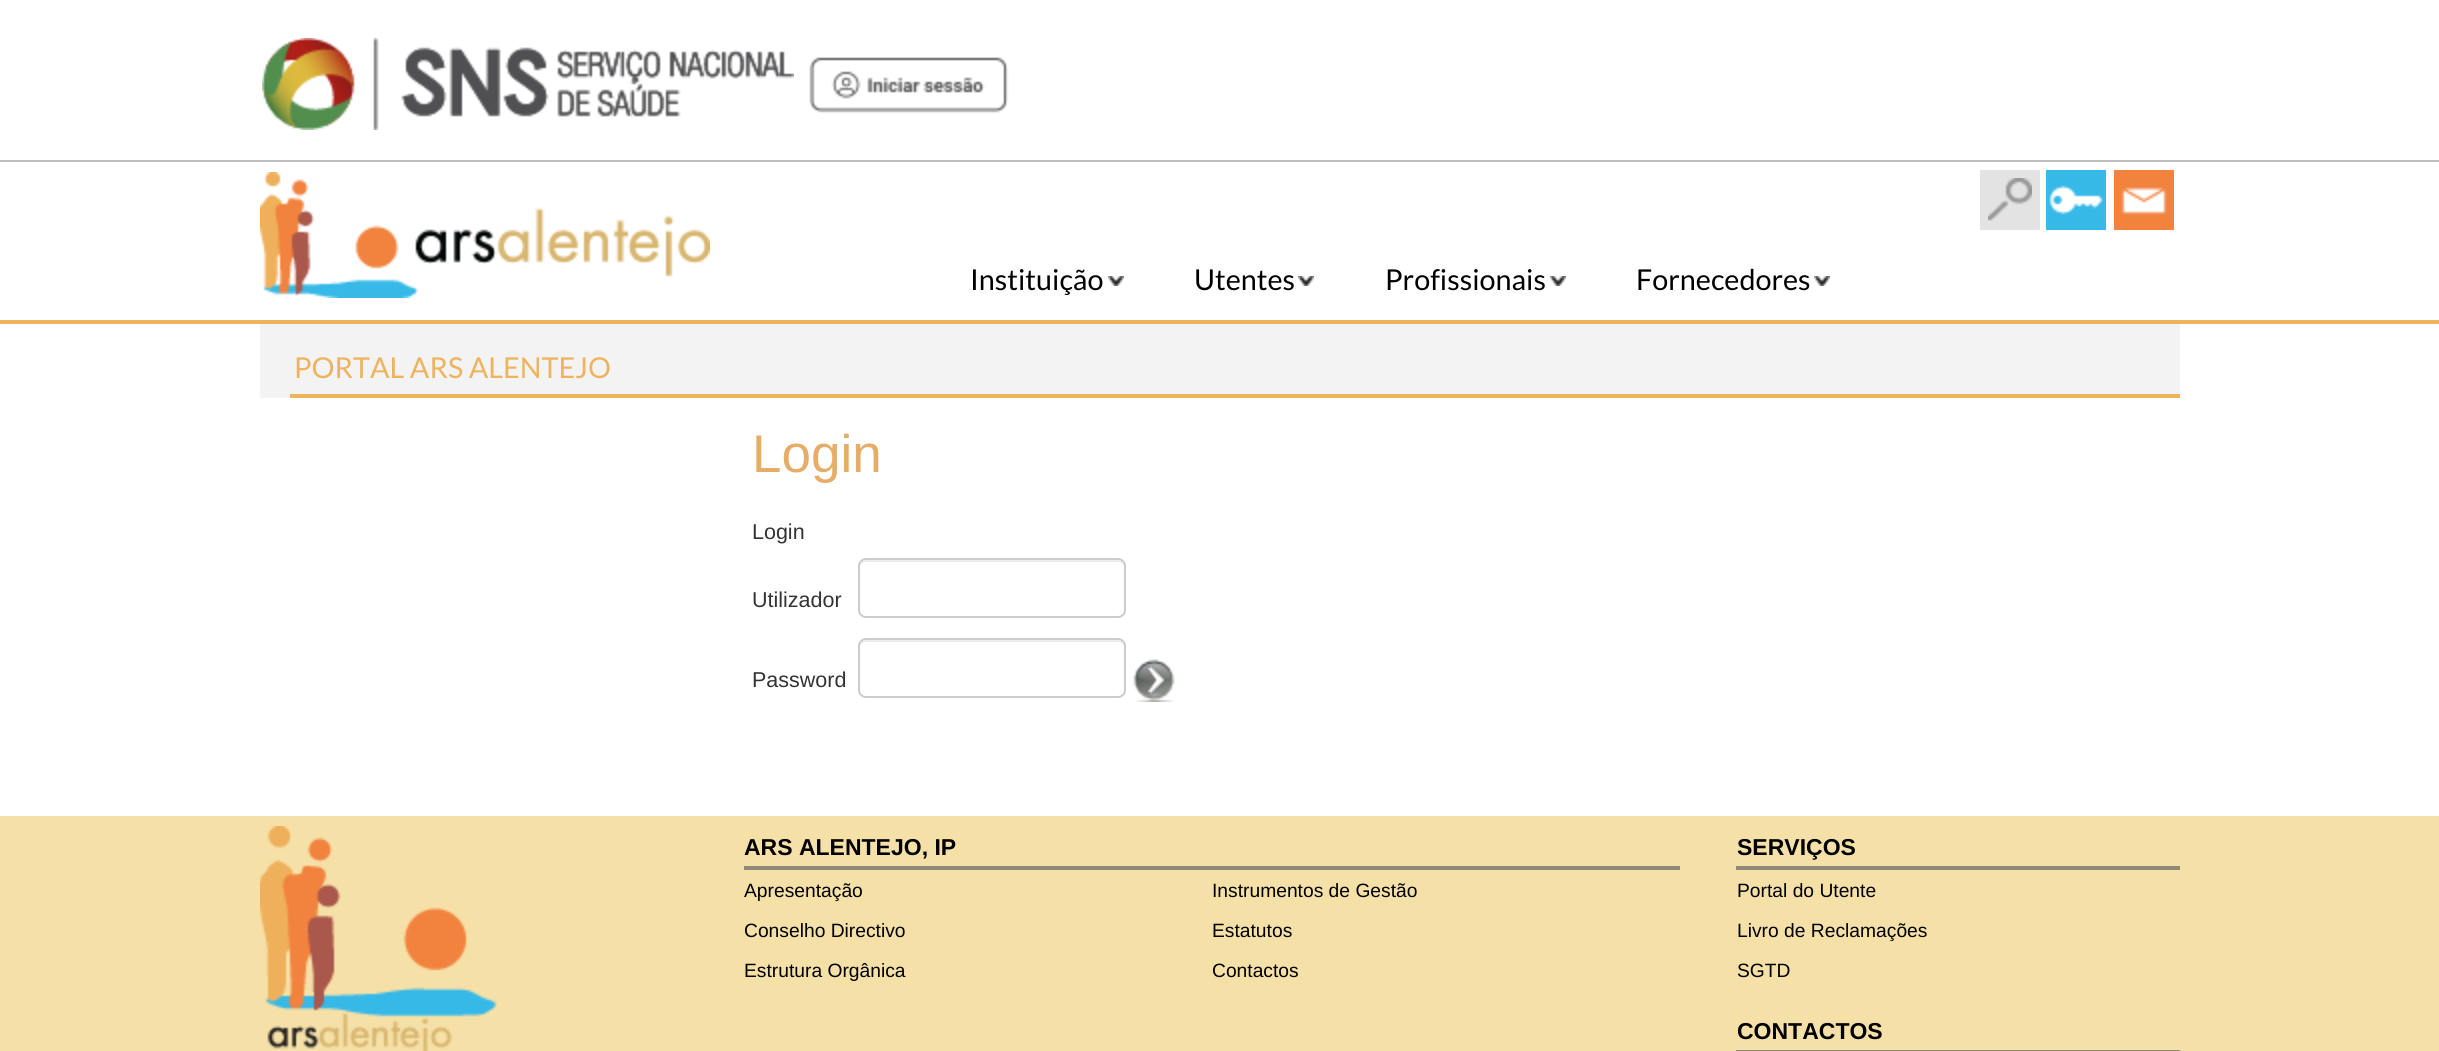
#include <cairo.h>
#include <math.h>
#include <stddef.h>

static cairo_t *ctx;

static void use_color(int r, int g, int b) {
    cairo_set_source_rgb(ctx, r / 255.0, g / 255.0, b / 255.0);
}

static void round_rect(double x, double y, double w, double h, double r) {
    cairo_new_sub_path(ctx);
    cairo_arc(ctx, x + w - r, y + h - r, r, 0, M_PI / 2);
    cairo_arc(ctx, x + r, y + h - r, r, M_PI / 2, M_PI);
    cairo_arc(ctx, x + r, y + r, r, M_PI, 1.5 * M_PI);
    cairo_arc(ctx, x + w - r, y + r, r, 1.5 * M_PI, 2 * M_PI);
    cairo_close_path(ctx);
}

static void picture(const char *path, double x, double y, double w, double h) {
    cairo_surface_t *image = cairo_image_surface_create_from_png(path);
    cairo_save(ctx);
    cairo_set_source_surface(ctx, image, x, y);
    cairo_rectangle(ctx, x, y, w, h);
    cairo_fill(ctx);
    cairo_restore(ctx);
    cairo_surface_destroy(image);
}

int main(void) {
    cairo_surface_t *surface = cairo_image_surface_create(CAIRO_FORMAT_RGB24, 2439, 1051);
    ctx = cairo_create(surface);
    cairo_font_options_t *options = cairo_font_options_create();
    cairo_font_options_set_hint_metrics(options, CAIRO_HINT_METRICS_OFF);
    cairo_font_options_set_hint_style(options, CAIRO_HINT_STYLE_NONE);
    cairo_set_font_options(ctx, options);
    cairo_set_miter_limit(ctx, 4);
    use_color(255, 255, 255);
    cairo_paint(ctx);
    picture("img1.png", 262, 38, 532, 92);
    picture("img2.png", 809, 57, 200, 56);
    use_color(192, 192, 192);
    cairo_rectangle(ctx, 0, 160, 2439, 2);
    cairo_fill(ctx);
    use_color(239, 179, 93);
    cairo_rectangle(ctx, 0, 320, 2439, 4);
    cairo_fill(ctx);
    picture("img3.png", 260, 172, 450, 126);
    picture("img4.png", 1108, 276, 16, 10);
    cairo_select_font_face(ctx, "Lato", CAIRO_FONT_SLANT_NORMAL, CAIRO_FONT_WEIGHT_NORMAL);
    cairo_set_font_size(ctx, 28.75);
    use_color(0, 0, 0);
    cairo_move_to(ctx, 970, 290);
    cairo_show_text(ctx, "Instituição");
    picture("img4.png", 1298, 276, 16, 10);
    cairo_move_to(ctx, 1194, 290);
    cairo_show_text(ctx, "Utentes");
    picture("img4.png", 1550, 276, 16, 10);
    cairo_move_to(ctx, 1385, 290);
    cairo_show_text(ctx, "Profissionais");
    picture("img4.png", 1814, 276, 16, 10);
    cairo_move_to(ctx, 1636, 290);
    cairo_show_text(ctx, "Fornecedores");
    use_color(227, 227, 227);
    cairo_rectangle(ctx, 1980, 170, 60, 60);
    cairo_fill(ctx);
    picture("img5.png", 1988, 178, 44, 43);
    picture("img6.png", 2046, 170, 60, 60);
    picture("img7.png", 2114, 170, 60, 60);
    use_color(243, 243, 243);
    cairo_rectangle(ctx, 260, 324, 1920, 74);
    cairo_fill(ctx);
    use_color(239, 179, 93);
    cairo_rectangle(ctx, 290, 394, 1890, 4);
    cairo_fill(ctx);
    cairo_move_to(ctx, 294, 378);
    cairo_show_text(ctx, "PORTAL ARS ALENTEJO");
    cairo_select_font_face(ctx, "Liberation Sans", CAIRO_FONT_SLANT_NORMAL, CAIRO_FONT_WEIGHT_NORMAL);
    cairo_set_font_size(ctx, 53);
    use_color(230, 173, 104);
    cairo_move_to(ctx, 752, 472);
    cairo_show_text(ctx, "Login");
    cairo_set_font_size(ctx, 21.5);
    use_color(51, 51, 51);
    cairo_move_to(ctx, 752, 539);
    cairo_show_text(ctx, "Login");
    cairo_move_to(ctx, 752, 607);
    cairo_show_text(ctx, "Utilizador");
    use_color(236, 236, 236);
    cairo_new_path(ctx);
    cairo_move_to(ctx, 866, 562);
    cairo_line_to(ctx, 1118, 562);
    cairo_curve_to(ctx, 1121, 562, 1124, 565, 1124, 568);
    cairo_curve_to(ctx, 1124, 565, 1123, 561, 1119, 560);
    cairo_line_to(ctx, 865, 560);
    cairo_curve_to(ctx, 861, 561, 860, 565, 860, 568);
    cairo_curve_to(ctx, 860, 565, 863, 562, 866, 562);
    cairo_close_path(ctx);
    cairo_fill(ctx);
    round_rect(859, 559, 266, 58, 7);
    use_color(204, 204, 204);
    cairo_stroke(ctx);
    use_color(51, 51, 51);
    cairo_move_to(ctx, 752, 687);
    cairo_show_text(ctx, "Password");
    use_color(236, 236, 236);
    cairo_new_path(ctx);
    cairo_move_to(ctx, 866, 642);
    cairo_line_to(ctx, 1118, 642);
    cairo_curve_to(ctx, 1121, 642, 1124, 645, 1124, 648);
    cairo_curve_to(ctx, 1124, 645, 1123, 641, 1119, 640);
    cairo_line_to(ctx, 865, 640);
    cairo_curve_to(ctx, 861, 641, 860, 645, 860, 648);
    cairo_curve_to(ctx, 860, 645, 863, 642, 866, 642);
    cairo_close_path(ctx);
    cairo_fill(ctx);
    round_rect(859, 639, 266, 58, 7);
    use_color(204, 204, 204);
    cairo_stroke(ctx);
    picture("img8.png", 1133, 659, 42, 43);
    use_color(245, 224, 167);
    cairo_rectangle(ctx, 0, 816, 2439, 235);
    cairo_fill(ctx);
    picture("img9.png", 260, 826, 237, 225);
    cairo_select_font_face(ctx, "Liberation Sans", CAIRO_FONT_SLANT_NORMAL, CAIRO_FONT_WEIGHT_BOLD);
    cairo_set_font_size(ctx, 23);
    use_color(0, 0, 0);
    cairo_move_to(ctx, 744, 855);
    cairo_show_text(ctx, "ARS ALENTEJO, IP");
    use_color(142, 140, 119);
    cairo_rectangle(ctx, 744, 866, 936, 4);
    cairo_fill(ctx);
    cairo_select_font_face(ctx, "Liberation Sans", CAIRO_FONT_SLANT_NORMAL, CAIRO_FONT_WEIGHT_NORMAL);
    cairo_set_font_size(ctx, 19.25);
    use_color(0, 0, 0);
    cairo_move_to(ctx, 744, 897);
    cairo_show_text(ctx, "Apresentação");
    cairo_move_to(ctx, 1212, 897);
    cairo_show_text(ctx, "Instrumentos de Gestão");
    cairo_move_to(ctx, 744, 937);
    cairo_show_text(ctx, "Conselho Directivo");
    cairo_move_to(ctx, 1212, 937);
    cairo_show_text(ctx, "Estatutos");
    cairo_move_to(ctx, 744, 977);
    cairo_show_text(ctx, "Estrutura Orgânica");
    cairo_move_to(ctx, 1212, 977);
    cairo_show_text(ctx, "Contactos");
    cairo_select_font_face(ctx, "Liberation Sans", CAIRO_FONT_SLANT_NORMAL, CAIRO_FONT_WEIGHT_BOLD);
    cairo_set_font_size(ctx, 23);
    cairo_move_to(ctx, 1737, 855);
    cairo_show_text(ctx, "SERVIÇOS");
    use_color(142, 140, 119);
    cairo_rectangle(ctx, 1736, 866, 444, 4);
    cairo_fill(ctx);
    cairo_select_font_face(ctx, "Liberation Sans", CAIRO_FONT_SLANT_NORMAL, CAIRO_FONT_WEIGHT_NORMAL);
    cairo_set_font_size(ctx, 19.25);
    use_color(0, 0, 0);
    cairo_move_to(ctx, 1737, 897);
    cairo_show_text(ctx, "Portal do Utente");
    cairo_move_to(ctx, 1737, 937);
    cairo_show_text(ctx, "Livro de Reclamações");
    cairo_move_to(ctx, 1737, 977);
    cairo_show_text(ctx, "SGTD");
    cairo_select_font_face(ctx, "Liberation Sans", CAIRO_FONT_SLANT_NORMAL, CAIRO_FONT_WEIGHT_BOLD);
    cairo_set_font_size(ctx, 23);
    cairo_move_to(ctx, 1737, 1039);
    cairo_show_text(ctx, "CONTACTOS");
    use_color(142, 140, 119);
    cairo_rectangle(ctx, 1736, 1050, 444, 1);
    cairo_fill(ctx);
    cairo_surface_write_to_png(surface, "result.png");
    cairo_font_options_destroy(options);
    cairo_destroy(ctx);
    cairo_surface_destroy(surface);
    return 0;
}
